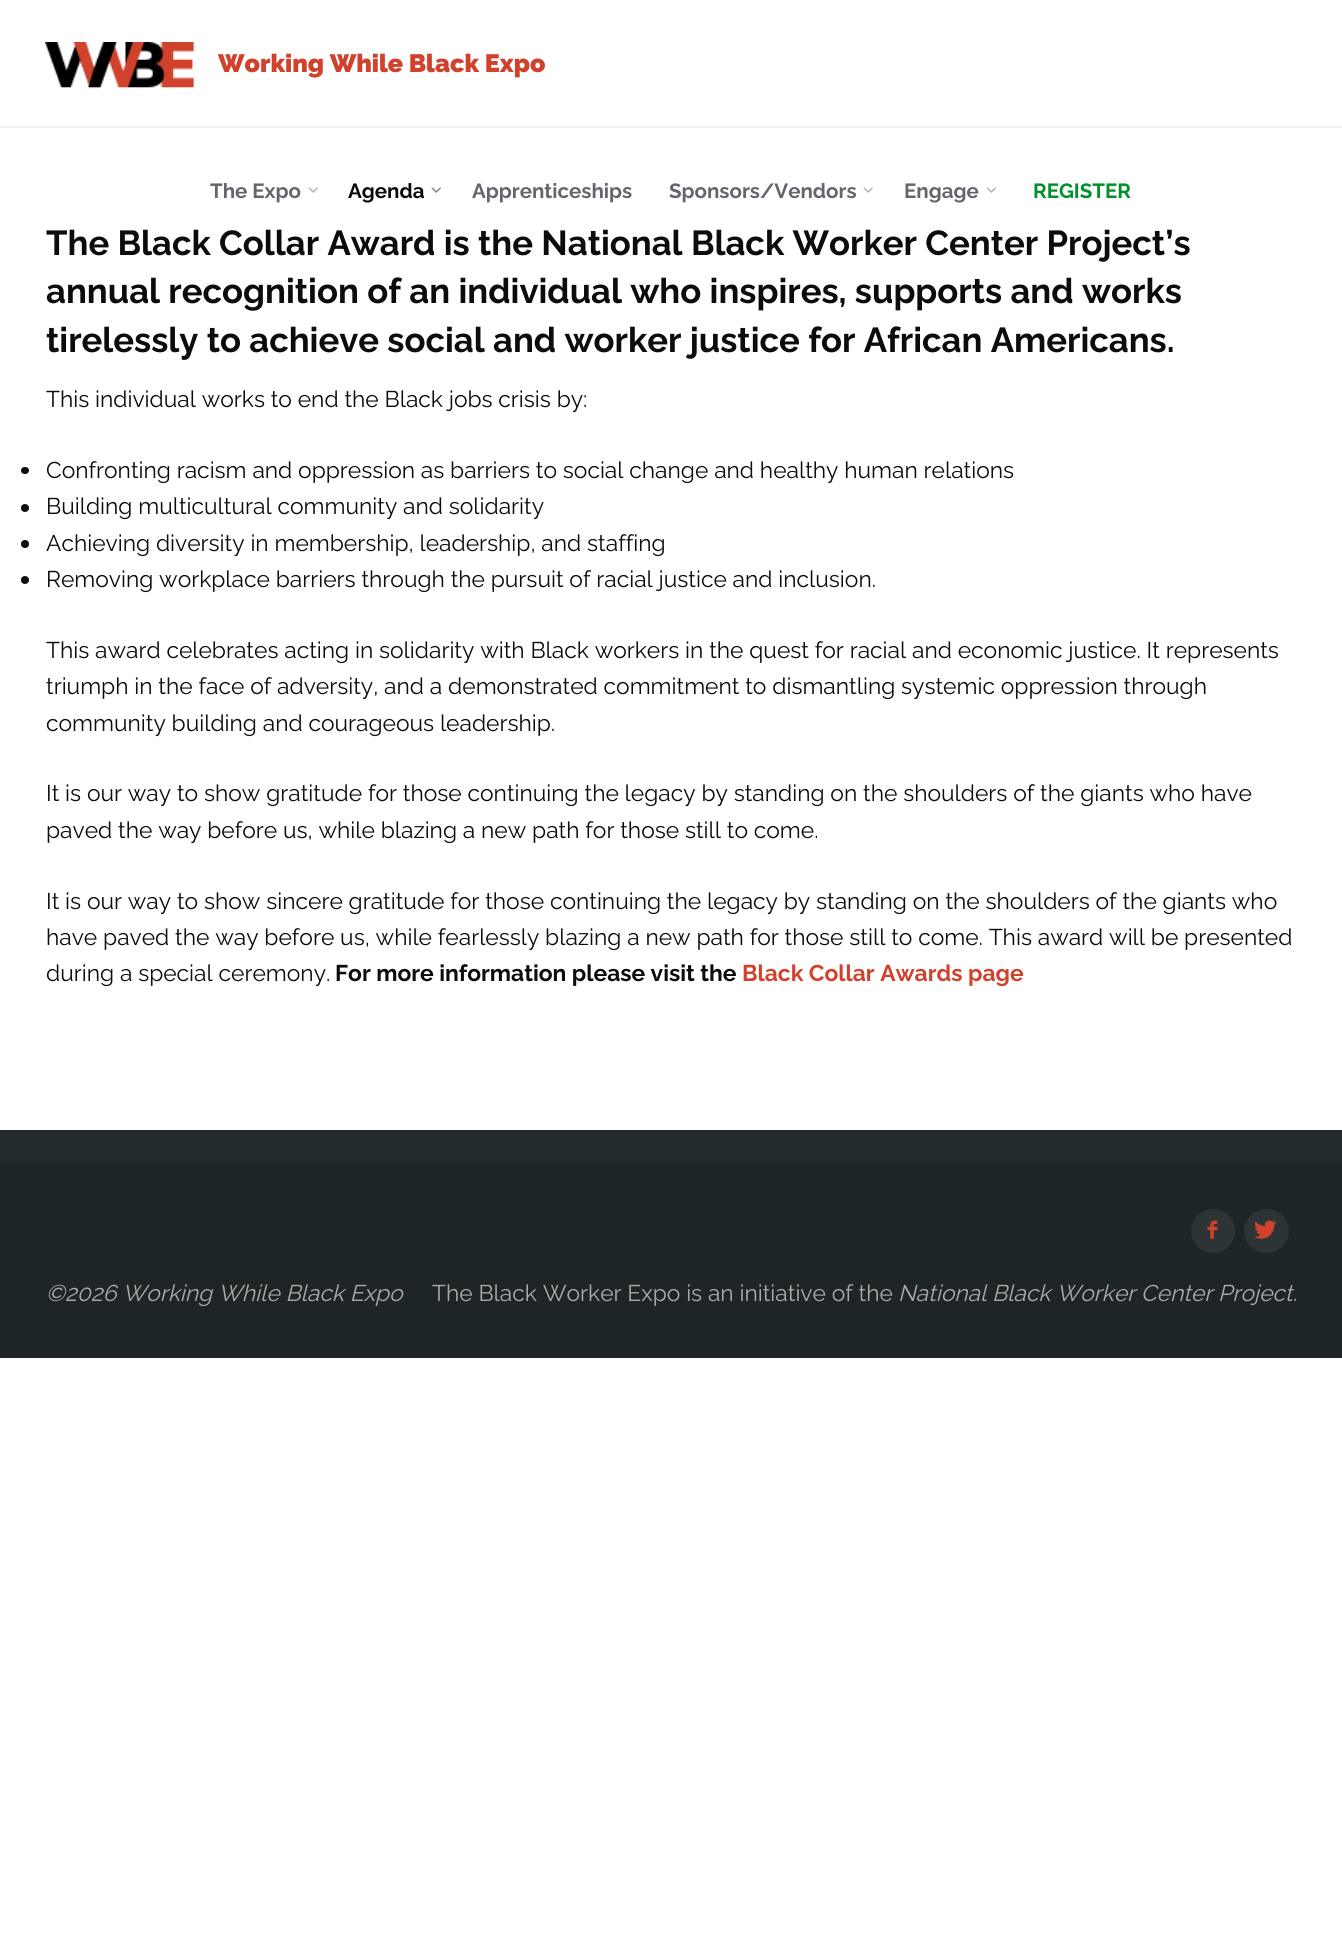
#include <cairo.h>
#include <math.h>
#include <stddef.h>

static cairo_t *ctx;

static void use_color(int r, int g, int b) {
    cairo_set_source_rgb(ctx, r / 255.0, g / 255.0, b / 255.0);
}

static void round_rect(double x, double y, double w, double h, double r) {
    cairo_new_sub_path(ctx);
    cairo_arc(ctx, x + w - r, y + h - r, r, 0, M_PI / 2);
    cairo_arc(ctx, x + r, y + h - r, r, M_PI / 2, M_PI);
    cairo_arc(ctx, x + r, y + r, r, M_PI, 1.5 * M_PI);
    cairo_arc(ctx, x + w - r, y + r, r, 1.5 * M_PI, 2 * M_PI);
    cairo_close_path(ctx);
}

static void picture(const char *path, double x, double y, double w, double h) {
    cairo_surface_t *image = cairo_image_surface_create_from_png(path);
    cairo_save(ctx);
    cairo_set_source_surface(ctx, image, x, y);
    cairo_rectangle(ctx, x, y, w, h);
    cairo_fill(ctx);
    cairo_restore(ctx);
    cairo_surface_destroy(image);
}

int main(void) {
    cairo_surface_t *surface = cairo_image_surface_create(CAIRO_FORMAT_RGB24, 1342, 1940);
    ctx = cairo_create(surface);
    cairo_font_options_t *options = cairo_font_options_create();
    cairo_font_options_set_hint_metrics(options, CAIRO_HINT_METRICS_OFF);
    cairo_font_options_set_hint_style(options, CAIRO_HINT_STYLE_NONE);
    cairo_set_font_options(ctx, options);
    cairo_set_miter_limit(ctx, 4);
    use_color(255, 255, 255);
    cairo_paint(ctx);
    use_color(242, 242, 242);
    cairo_rectangle(ctx, 0, 126, 1342, 2);
    cairo_fill(ctx);
    picture("img1.png", 45, 42, 150, 47);
    cairo_select_font_face(ctx, "Raleway Black", CAIRO_FONT_SLANT_NORMAL, CAIRO_FONT_WEIGHT_NORMAL);
    cairo_set_font_size(ctx, 25.1);
    use_color(208, 66, 44);
    cairo_move_to(ctx, 218, 72);
    cairo_show_text(ctx, "Working While Black Expo");
    cairo_select_font_face(ctx, "Raleway", CAIRO_FONT_SLANT_NORMAL, CAIRO_FONT_WEIGHT_BOLD);
    cairo_set_font_size(ctx, 20.5);
    use_color(99, 102, 107);
    cairo_move_to(ctx, 210, 198);
    cairo_show_text(ctx, "The Expo");
    picture("img2.png", 308, 187, 10, 6);
    use_color(12, 12, 12);
    cairo_move_to(ctx, 348, 198);
    cairo_show_text(ctx, "Agenda");
    picture("img3.png", 431, 187, 10, 6);
    use_color(99, 102, 107);
    cairo_move_to(ctx, 472, 198);
    cairo_show_text(ctx, "Apprenticeships");
    cairo_move_to(ctx, 669, 198);
    cairo_show_text(ctx, "Sponsors/Vendors");
    picture("img2.png", 863, 187, 10, 6);
    cairo_move_to(ctx, 904, 198);
    cairo_show_text(ctx, "Engage");
    picture("img2.png", 986, 187, 10, 6);
    use_color(0, 145, 44);
    cairo_move_to(ctx, 1033, 198);
    cairo_show_text(ctx, "REGISTER");
    cairo_set_font_size(ctx, 34.65);
    use_color(12, 12, 12);
    cairo_move_to(ctx, 46, 255);
    cairo_show_text(ctx, "The Black Collar Award is the National Black Worker Center Project’s");
    cairo_move_to(ctx, 46, 303);
    cairo_show_text(ctx, "annual recognition of an individual who inspires, supports and works");
    cairo_move_to(ctx, 46, 352);
    cairo_show_text(ctx, "tirelessly to achieve social and worker justice for African Americans.");
    cairo_select_font_face(ctx, "Raleway", CAIRO_FONT_SLANT_NORMAL, CAIRO_FONT_WEIGHT_NORMAL);
    cairo_set_font_size(ctx, 22.8);
    cairo_move_to(ctx, 46, 407);
    cairo_show_text(ctx, "This individual works to end the Black jobs crisis by:");
    round_rect(21, 467, 8, 7, 3.5);
    cairo_fill(ctx);
    cairo_move_to(ctx, 46, 478);
    cairo_show_text(ctx, "Confronting racism and oppression as barriers to social change and healthy human relations");
    cairo_new_path(ctx);
    cairo_arc(ctx, 25, 508, 4, 0, 2 * M_PI);
    cairo_fill(ctx);
    cairo_move_to(ctx, 46, 514);
    cairo_show_text(ctx, "Building multicultural community and solidarity");
    cairo_new_path(ctx);
    cairo_arc(ctx, 25, 544, 4, 0, 2 * M_PI);
    cairo_fill(ctx);
    cairo_move_to(ctx, 46, 551);
    cairo_show_text(ctx, "Achieving diversity in membership, leadership, and staffing");
    cairo_new_path(ctx);
    cairo_arc(ctx, 25, 580, 4, 0, 2 * M_PI);
    cairo_fill(ctx);
    cairo_move_to(ctx, 46, 587);
    cairo_show_text(ctx, "Removing workplace barriers through the pursuit of racial justice and inclusion.");
    cairo_move_to(ctx, 46, 658);
    cairo_show_text(ctx, "This award celebrates acting in solidarity with Black workers in the quest for racial and economic justice. It represents");
    cairo_move_to(ctx, 46, 694);
    cairo_show_text(ctx, "triumph in the face of adversity, and a demonstrated commitment to dismantling systemic oppression through");
    cairo_move_to(ctx, 46, 731);
    cairo_show_text(ctx, "community building and courageous leadership.");
    cairo_move_to(ctx, 46, 801);
    cairo_show_text(ctx, "It is our way to show gratitude for those continuing the legacy by standing on the shoulders of the giants who have");
    cairo_move_to(ctx, 46, 838);
    cairo_show_text(ctx, "paved the way before us, while blazing a new path for those still to come.");
    cairo_move_to(ctx, 46, 909);
    cairo_show_text(ctx, "It is our way to show sincere gratitude for those continuing the legacy by standing on the shoulders of the giants who");
    cairo_move_to(ctx, 46, 945);
    cairo_show_text(ctx, "have paved the way before us, while fearlessly blazing a new path for those still to come. This award will be presented");
    cairo_move_to(ctx, 46, 981);
    cairo_show_text(ctx, "during a special ceremony.");
    cairo_select_font_face(ctx, "Raleway", CAIRO_FONT_SLANT_NORMAL, CAIRO_FONT_WEIGHT_BOLD);
    cairo_move_to(ctx, 335, 981);
    cairo_show_text(ctx, "For more information please visit the");
    use_color(208, 66, 44);
    cairo_move_to(ctx, 742, 981);
    cairo_show_text(ctx, "Black Collar Awards page");
    use_color(34, 42, 44);
    cairo_rectangle(ctx, 0, 1130, 1342, 34);
    cairo_fill(ctx);
    use_color(29, 37, 39);
    cairo_rectangle(ctx, 0, 1164, 1342, 194);
    cairo_fill(ctx);
    use_color(44, 52, 54);
    cairo_arc(ctx, 1213, 1231, 22, 0, 2 * M_PI);
    cairo_fill(ctx);
    picture("img4.png", 1207, 1220, 11, 19);
    round_rect(1244, 1209, 45, 44, 22);
    cairo_fill(ctx);
    picture("img5.png", 1254, 1220, 23, 19);
    cairo_select_font_face(ctx, "Raleway", CAIRO_FONT_SLANT_ITALIC, CAIRO_FONT_WEIGHT_NORMAL);
    use_color(170, 170, 170);
    cairo_move_to(ctx, 46, 1301);
    cairo_show_text(ctx, "©2026 Working While Black Expo");
    cairo_select_font_face(ctx, "Raleway", CAIRO_FONT_SLANT_NORMAL, CAIRO_FONT_WEIGHT_NORMAL);
    cairo_move_to(ctx, 432, 1301);
    cairo_show_text(ctx, "The Black Worker Expo is an initiative of the");
    cairo_select_font_face(ctx, "Raleway", CAIRO_FONT_SLANT_ITALIC, CAIRO_FONT_WEIGHT_NORMAL);
    cairo_move_to(ctx, 898, 1301);
    cairo_show_text(ctx, "National Black Worker Center Project");
    cairo_select_font_face(ctx, "Raleway", CAIRO_FONT_SLANT_NORMAL, CAIRO_FONT_WEIGHT_NORMAL);
    cairo_move_to(ctx, 1293, 1301);
    cairo_show_text(ctx, ".");
    cairo_surface_write_to_png(surface, "result.png");
    cairo_font_options_destroy(options);
    cairo_destroy(ctx);
    cairo_surface_destroy(surface);
    return 0;
}
